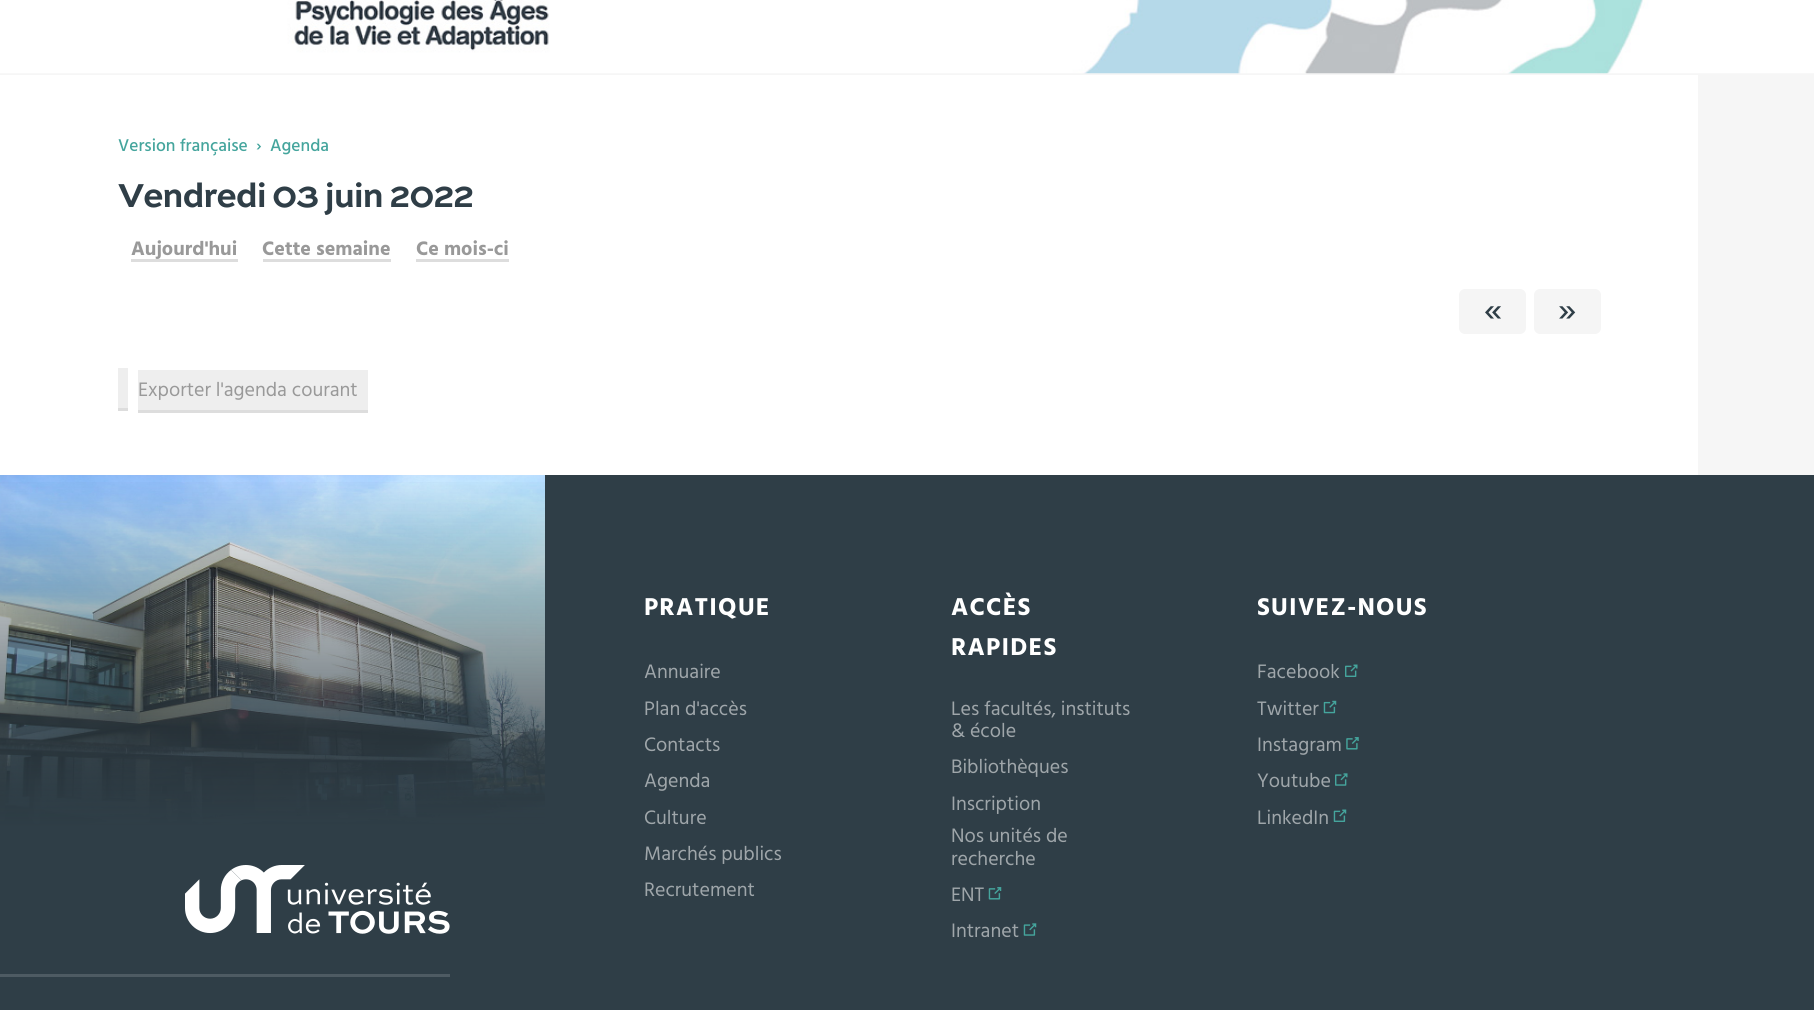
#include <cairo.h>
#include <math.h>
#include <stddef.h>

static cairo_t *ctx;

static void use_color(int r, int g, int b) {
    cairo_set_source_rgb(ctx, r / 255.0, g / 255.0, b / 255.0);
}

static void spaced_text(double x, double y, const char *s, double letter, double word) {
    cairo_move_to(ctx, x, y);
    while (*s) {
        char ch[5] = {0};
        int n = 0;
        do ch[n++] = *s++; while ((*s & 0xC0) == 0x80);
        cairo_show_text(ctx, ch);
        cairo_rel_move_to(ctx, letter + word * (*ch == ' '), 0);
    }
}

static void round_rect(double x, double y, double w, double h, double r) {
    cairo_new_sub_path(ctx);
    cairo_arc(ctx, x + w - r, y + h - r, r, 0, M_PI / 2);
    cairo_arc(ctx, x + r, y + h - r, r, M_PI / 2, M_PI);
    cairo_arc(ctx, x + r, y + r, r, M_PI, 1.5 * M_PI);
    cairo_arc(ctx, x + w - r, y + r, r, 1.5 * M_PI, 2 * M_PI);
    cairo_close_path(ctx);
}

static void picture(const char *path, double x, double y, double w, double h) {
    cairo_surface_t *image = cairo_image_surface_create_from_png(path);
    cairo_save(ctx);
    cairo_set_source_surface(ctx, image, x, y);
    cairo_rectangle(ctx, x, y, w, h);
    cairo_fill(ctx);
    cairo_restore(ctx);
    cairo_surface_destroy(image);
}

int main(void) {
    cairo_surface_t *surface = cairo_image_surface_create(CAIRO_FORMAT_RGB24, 1814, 1010);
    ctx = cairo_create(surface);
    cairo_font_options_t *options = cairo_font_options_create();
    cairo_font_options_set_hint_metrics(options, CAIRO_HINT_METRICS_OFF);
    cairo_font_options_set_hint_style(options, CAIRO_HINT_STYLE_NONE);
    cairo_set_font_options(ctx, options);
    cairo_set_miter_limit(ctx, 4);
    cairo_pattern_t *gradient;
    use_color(246, 246, 246);
    cairo_paint(ctx);
    picture("img1.png", 0, 0, 1814, 74);
    use_color(255, 255, 255);
    cairo_rectangle(ctx, 0, 75, 1698, 400);
    cairo_fill(ctx);
    cairo_select_font_face(ctx, "Hind Medium", CAIRO_FONT_SLANT_NORMAL, CAIRO_FONT_WEIGHT_NORMAL);
    cairo_set_font_size(ctx, 17.5);
    use_color(69, 165, 157);
    cairo_move_to(ctx, 118, 151);
    cairo_show_text(ctx, "Version française");
    cairo_move_to(ctx, 256, 151);
    cairo_show_text(ctx, "›");
    cairo_move_to(ctx, 270, 151);
    cairo_show_text(ctx, "Agenda");
    cairo_select_font_face(ctx, "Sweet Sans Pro", CAIRO_FONT_SLANT_NORMAL, CAIRO_FONT_WEIGHT_BOLD);
    cairo_set_font_size(ctx, 35);
    use_color(47, 62, 71);
    spaced_text(118, 207, "Vendredi 03 juin 2022", -1.25, 0);
    cairo_select_font_face(ctx, "Hind", CAIRO_FONT_SLANT_NORMAL, CAIRO_FONT_WEIGHT_BOLD);
    cairo_set_font_size(ctx, 20);
    use_color(153, 153, 153);
    cairo_move_to(ctx, 131, 255);
    cairo_show_text(ctx, "Aujourd'hui");
    use_color(221, 221, 221);
    cairo_rectangle(ctx, 131, 259, 107, 3);
    cairo_fill(ctx);
    use_color(153, 153, 153);
    cairo_move_to(ctx, 262, 255);
    cairo_show_text(ctx, "Cette semaine");
    use_color(221, 221, 221);
    cairo_rectangle(ctx, 263, 259, 128, 3);
    cairo_fill(ctx);
    use_color(153, 153, 153);
    cairo_move_to(ctx, 416, 255);
    cairo_show_text(ctx, "Ce mois-ci");
    use_color(221, 221, 221);
    cairo_rectangle(ctx, 416, 259, 93, 3);
    cairo_fill(ctx);
    use_color(245, 245, 245);
    round_rect(1459, 289, 67, 45, 6);
    cairo_fill(ctx);
    cairo_select_font_face(ctx, "Hind", CAIRO_FONT_SLANT_NORMAL, CAIRO_FONT_WEIGHT_NORMAL);
    cairo_set_font_size(ctx, 38);
    use_color(47, 62, 71);
    cairo_move_to(ctx, 1484, 322);
    cairo_show_text(ctx, "«");
    use_color(245, 245, 245);
    round_rect(1534, 289, 67, 45, 6);
    cairo_fill(ctx);
    use_color(47, 62, 71);
    cairo_move_to(ctx, 1558, 322);
    cairo_show_text(ctx, "»");
    use_color(238, 238, 238);
    cairo_rectangle(ctx, 138, 370, 230, 40);
    cairo_fill(ctx);
    cairo_set_font_size(ctx, 20);
    use_color(153, 153, 153);
    cairo_move_to(ctx, 138, 396);
    cairo_show_text(ctx, "Exporter l'agenda courant");
    use_color(238, 238, 238);
    cairo_rectangle(ctx, 118, 368, 10, 40);
    cairo_fill(ctx);
    use_color(221, 221, 221);
    cairo_rectangle(ctx, 118, 408, 10, 3);
    cairo_fill(ctx);
    cairo_rectangle(ctx, 138, 410, 230, 3);
    cairo_fill(ctx);
    use_color(47, 62, 71);
    cairo_rectangle(ctx, 0, 475, 1814, 535);
    cairo_fill(ctx);
    picture("img2.png", 0, 475, 545, 351);
    gradient = cairo_pattern_create_linear(272, 475, 273, 915);
    cairo_pattern_add_color_stop_rgba(gradient, 0, 0.184, 0.243, 0.278, 0);
    cairo_pattern_add_color_stop_rgba(gradient, 0.8, 0.184, 0.243, 0.278, 1);
    cairo_set_source(ctx, gradient);
    cairo_pattern_destroy(gradient);
    cairo_rectangle(ctx, 0, 482, 545, 344);
    cairo_fill(ctx);
    use_color(78, 91, 99);
    cairo_rectangle(ctx, 0, 974, 450, 3);
    cairo_fill(ctx);
    picture("img3.png", 185, 865, 265, 69);
    cairo_select_font_face(ctx, "Hind", CAIRO_FONT_SLANT_NORMAL, CAIRO_FONT_WEIGHT_BOLD);
    cairo_set_font_size(ctx, 25);
    use_color(255, 255, 255);
    spaced_text(644, 615, "PRATIQUE", 1.25, 0);
    cairo_select_font_face(ctx, "Hind", CAIRO_FONT_SLANT_NORMAL, CAIRO_FONT_WEIGHT_NORMAL);
    cairo_set_font_size(ctx, 20);
    use_color(159, 166, 170);
    cairo_move_to(ctx, 644, 678);
    cairo_show_text(ctx, "Annuaire");
    cairo_move_to(ctx, 644, 715);
    cairo_show_text(ctx, "Plan d'accès");
    cairo_move_to(ctx, 644, 751);
    cairo_show_text(ctx, "Contacts");
    cairo_move_to(ctx, 644, 787);
    cairo_show_text(ctx, "Agenda");
    cairo_move_to(ctx, 644, 824);
    cairo_show_text(ctx, "Culture");
    cairo_move_to(ctx, 644, 860);
    cairo_show_text(ctx, "Marchés publics");
    cairo_move_to(ctx, 644, 896);
    cairo_show_text(ctx, "Recrutement");
    cairo_select_font_face(ctx, "Hind", CAIRO_FONT_SLANT_NORMAL, CAIRO_FONT_WEIGHT_BOLD);
    cairo_set_font_size(ctx, 25);
    use_color(255, 255, 255);
    spaced_text(951, 615, "ACCÈS", 1.25, 0);
    spaced_text(951, 655, "RAPIDES", 1.25, 0);
    cairo_select_font_face(ctx, "Hind", CAIRO_FONT_SLANT_NORMAL, CAIRO_FONT_WEIGHT_NORMAL);
    cairo_set_font_size(ctx, 20);
    use_color(159, 166, 170);
    cairo_move_to(ctx, 951, 715);
    cairo_show_text(ctx, "Les facultés, instituts");
    cairo_move_to(ctx, 951, 737);
    cairo_show_text(ctx, "& école");
    cairo_move_to(ctx, 951, 773);
    cairo_show_text(ctx, "Bibliothèques");
    cairo_move_to(ctx, 951, 810);
    cairo_show_text(ctx, "Inscription");
    cairo_move_to(ctx, 951, 842);
    cairo_show_text(ctx, "Nos unités de");
    cairo_move_to(ctx, 951, 865);
    cairo_show_text(ctx, "recherche");
    cairo_move_to(ctx, 951, 901);
    cairo_show_text(ctx, "ENT");
    picture("img4.png", 988, 887, 14, 13);
    cairo_move_to(ctx, 951, 937);
    cairo_show_text(ctx, "Intranet");
    picture("img5.png", 1023, 923, 14, 13);
    cairo_select_font_face(ctx, "Hind", CAIRO_FONT_SLANT_NORMAL, CAIRO_FONT_WEIGHT_BOLD);
    cairo_set_font_size(ctx, 25);
    use_color(255, 255, 255);
    spaced_text(1257, 615, "SUIVEZ-NOUS", 1.25, 0);
    cairo_select_font_face(ctx, "Hind", CAIRO_FONT_SLANT_NORMAL, CAIRO_FONT_WEIGHT_NORMAL);
    cairo_set_font_size(ctx, 20);
    use_color(159, 166, 170);
    cairo_move_to(ctx, 1257, 678);
    cairo_show_text(ctx, "Facebook");
    picture("img6.png", 1345, 664, 13, 13);
    cairo_move_to(ctx, 1257, 715);
    cairo_show_text(ctx, "Twitter");
    picture("img7.png", 1323, 700, 14, 14);
    cairo_move_to(ctx, 1257, 751);
    cairo_show_text(ctx, "Instagram");
    picture("img8.png", 1346, 737, 13, 13);
    cairo_move_to(ctx, 1257, 787);
    cairo_show_text(ctx, "Youtube");
    picture("img9.png", 1335, 773, 13, 13);
    cairo_move_to(ctx, 1257, 824);
    cairo_show_text(ctx, "LinkedIn");
    picture("img10.png", 1333, 809, 14, 13);
    cairo_surface_write_to_png(surface, "result.png");
    cairo_font_options_destroy(options);
    cairo_destroy(ctx);
    cairo_surface_destroy(surface);
    return 0;
}
